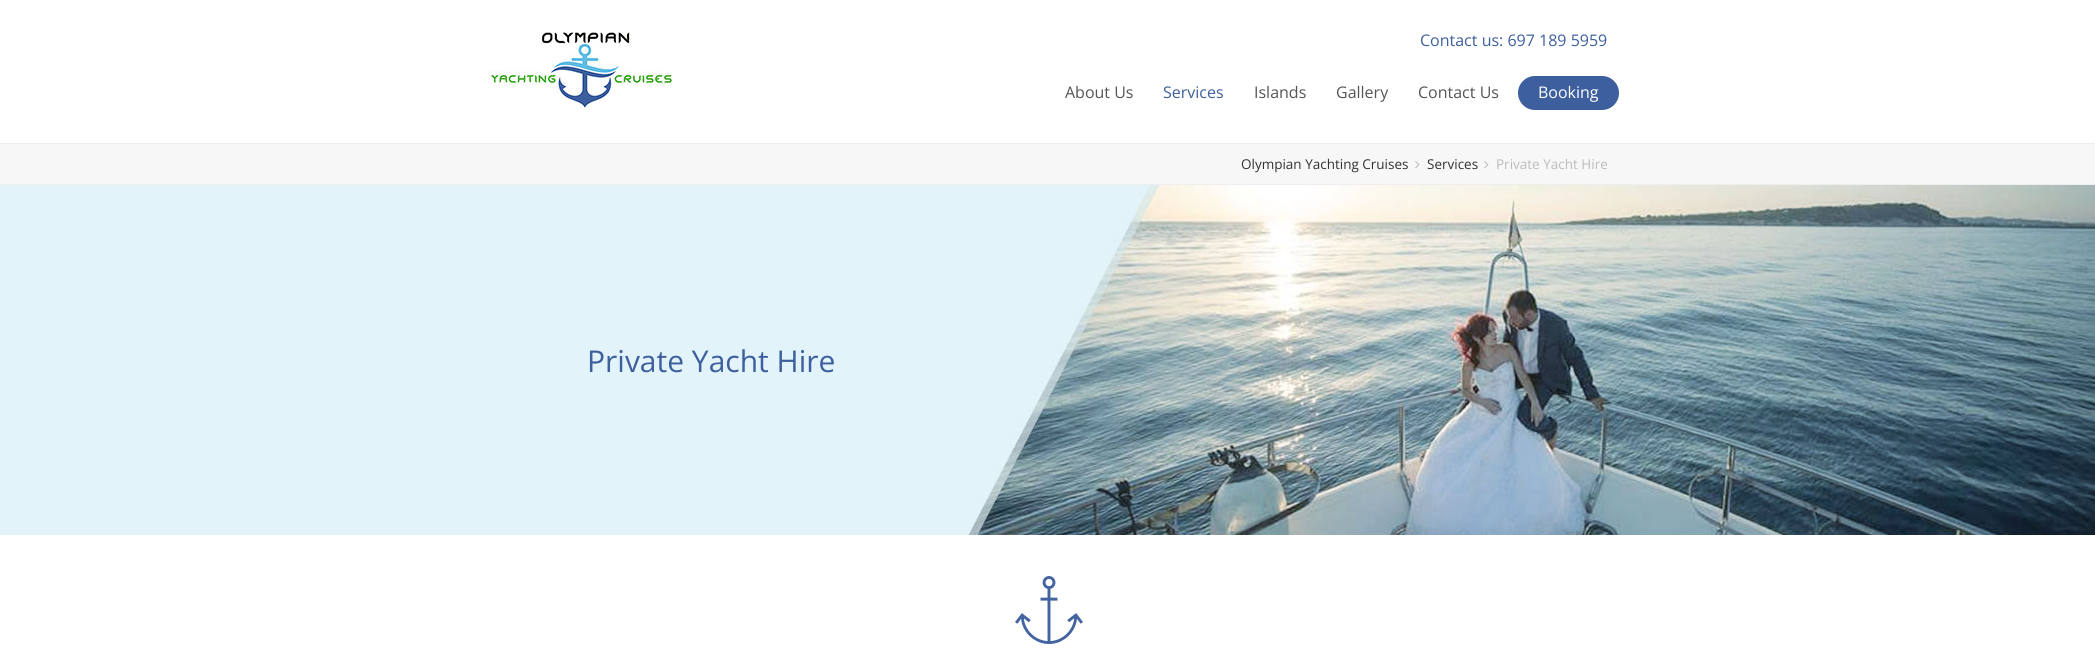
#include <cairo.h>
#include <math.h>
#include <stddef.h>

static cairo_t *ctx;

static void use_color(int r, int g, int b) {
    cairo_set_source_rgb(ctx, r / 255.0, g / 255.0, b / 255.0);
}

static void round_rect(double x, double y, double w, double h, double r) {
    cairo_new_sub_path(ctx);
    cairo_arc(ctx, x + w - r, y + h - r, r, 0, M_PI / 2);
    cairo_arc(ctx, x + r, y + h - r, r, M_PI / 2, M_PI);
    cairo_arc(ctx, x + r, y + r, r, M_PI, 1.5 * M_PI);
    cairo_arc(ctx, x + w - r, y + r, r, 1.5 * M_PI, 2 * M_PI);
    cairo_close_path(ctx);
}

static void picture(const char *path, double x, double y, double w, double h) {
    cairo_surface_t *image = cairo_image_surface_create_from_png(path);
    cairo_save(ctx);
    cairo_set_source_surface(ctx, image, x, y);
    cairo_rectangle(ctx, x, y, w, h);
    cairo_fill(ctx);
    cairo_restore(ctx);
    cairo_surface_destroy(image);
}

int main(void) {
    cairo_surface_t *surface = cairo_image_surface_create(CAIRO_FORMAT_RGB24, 2095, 659);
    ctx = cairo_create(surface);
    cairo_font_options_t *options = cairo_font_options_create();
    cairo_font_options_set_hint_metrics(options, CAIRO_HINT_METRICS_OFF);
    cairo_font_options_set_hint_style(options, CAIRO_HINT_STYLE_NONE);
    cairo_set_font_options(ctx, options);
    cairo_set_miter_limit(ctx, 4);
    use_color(255, 255, 255);
    cairo_paint(ctx);
    picture("img1.png", 488, 30, 184, 80);
    cairo_select_font_face(ctx, "Open Sans", CAIRO_FONT_SLANT_NORMAL, CAIRO_FONT_WEIGHT_NORMAL);
    cairo_set_font_size(ctx, 16);
    use_color(61, 95, 158);
    cairo_move_to(ctx, 1420, 46);
    cairo_show_text(ctx, "Contact us: 697 189 5959");
    use_color(85, 85, 85);
    cairo_move_to(ctx, 1065, 98);
    cairo_show_text(ctx, "About Us");
    use_color(61, 95, 158);
    cairo_move_to(ctx, 1163, 98);
    cairo_show_text(ctx, "Services");
    use_color(85, 85, 85);
    cairo_move_to(ctx, 1254, 98);
    cairo_show_text(ctx, "Islands");
    cairo_move_to(ctx, 1336, 98);
    cairo_show_text(ctx, "Gallery");
    cairo_move_to(ctx, 1418, 98);
    cairo_show_text(ctx, "Contact Us");
    use_color(61, 95, 158);
    round_rect(1518, 76, 101, 34, 17);
    cairo_fill(ctx);
    use_color(255, 255, 255);
    cairo_move_to(ctx, 1538, 98);
    cairo_show_text(ctx, "Booking");
    use_color(247, 247, 247);
    cairo_rectangle(ctx, 0, 144, 2095, 40);
    cairo_fill(ctx);
    use_color(238, 238, 238);
    cairo_rectangle(ctx, 0, 143, 2095, 1);
    cairo_fill(ctx);
    cairo_rectangle(ctx, 0, 184, 2095, 1);
    cairo_fill(ctx);
    cairo_set_font_size(ctx, 13.5);
    use_color(51, 51, 51);
    cairo_move_to(ctx, 1241, 169);
    cairo_show_text(ctx, "Olympian Yachting Cruises");
    picture("img2.png", 1415, 161, 5, 8);
    cairo_move_to(ctx, 1427, 169);
    cairo_show_text(ctx, "Services");
    picture("img2.png", 1484, 161, 5, 8);
    use_color(188, 188, 188);
    cairo_move_to(ctx, 1496, 169);
    cairo_show_text(ctx, "Private Yacht Hire");
    use_color(226, 243, 250);
    cairo_rectangle(ctx, 0, 185, 968, 350);
    cairo_fill(ctx);
    cairo_set_font_size(ctx, 30);
    use_color(61, 95, 158);
    cairo_move_to(ctx, 587, 372);
    cairo_show_text(ctx, "Private Yacht Hire");
    picture("img3.png", 968, 185, 1127, 350);
    picture("img4.png", 1015, 576, 68, 68);
    cairo_surface_write_to_png(surface, "result.png");
    cairo_font_options_destroy(options);
    cairo_destroy(ctx);
    cairo_surface_destroy(surface);
    return 0;
}
